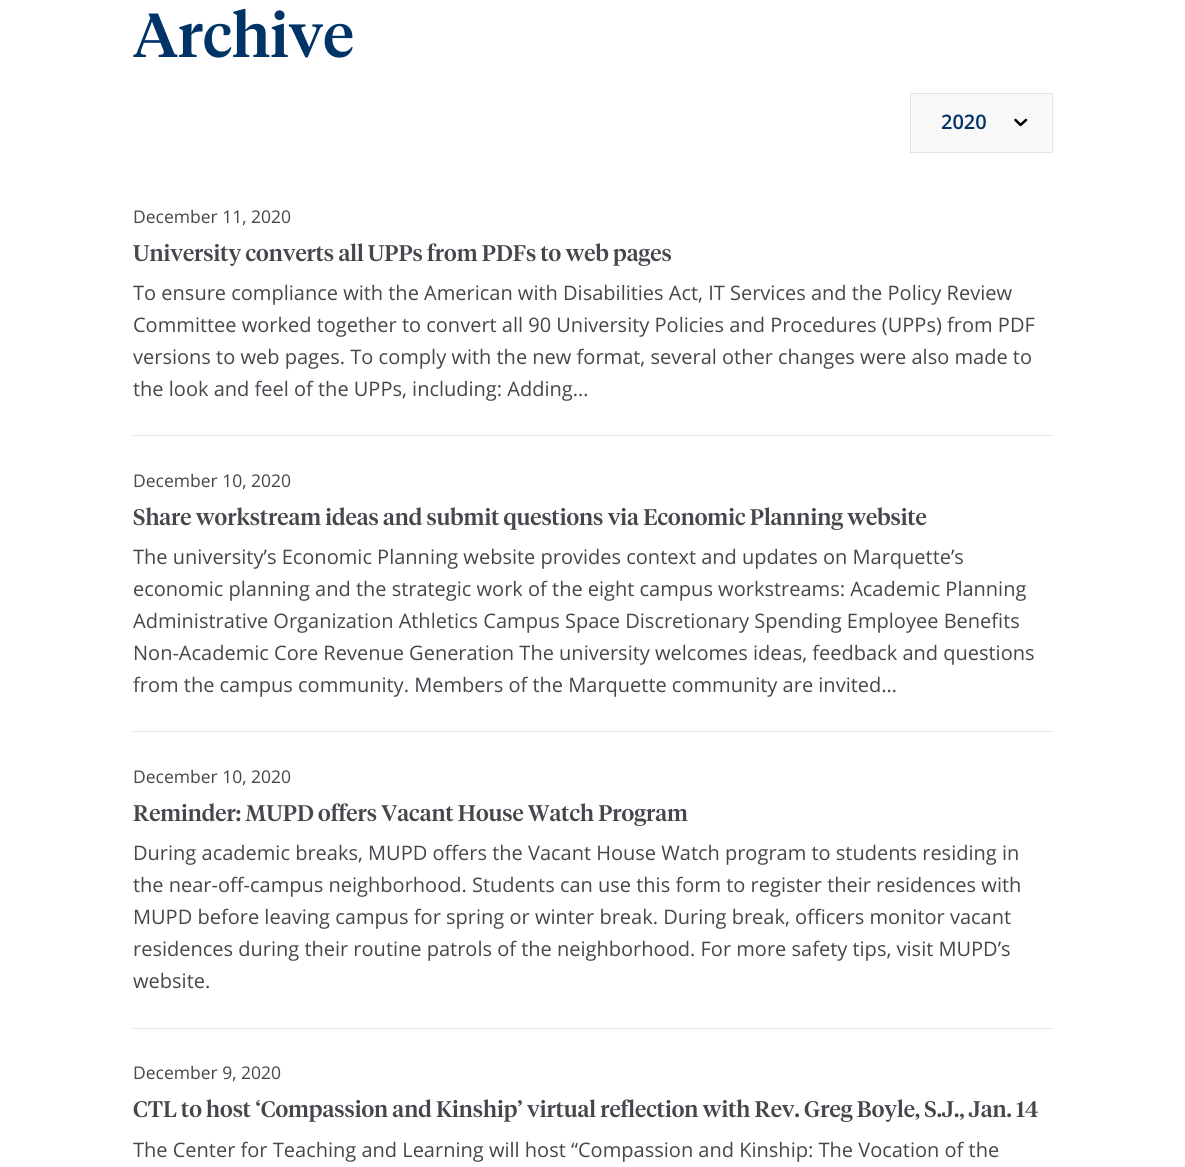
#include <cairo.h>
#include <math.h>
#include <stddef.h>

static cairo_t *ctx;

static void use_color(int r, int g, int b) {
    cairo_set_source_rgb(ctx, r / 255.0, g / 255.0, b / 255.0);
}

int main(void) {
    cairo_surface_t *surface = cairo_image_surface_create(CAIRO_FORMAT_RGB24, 1185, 1167);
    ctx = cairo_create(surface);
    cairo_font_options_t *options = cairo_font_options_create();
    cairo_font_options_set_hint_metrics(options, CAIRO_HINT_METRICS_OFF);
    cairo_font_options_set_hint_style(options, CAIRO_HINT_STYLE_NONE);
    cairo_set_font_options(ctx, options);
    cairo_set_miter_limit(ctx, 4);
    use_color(255, 255, 255);
    cairo_paint(ctx);
    cairo_select_font_face(ctx, "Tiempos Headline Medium", CAIRO_FONT_SLANT_NORMAL, CAIRO_FONT_WEIGHT_NORMAL);
    cairo_set_font_size(ctx, 61.5);
    use_color(0, 51, 102);
    cairo_move_to(ctx, 133, 57);
    cairo_show_text(ctx, "Archive");
    use_color(248, 248, 248);
    cairo_rectangle(ctx, 911, 94, 141, 58);
    cairo_fill(ctx);
    cairo_new_path(ctx);
    cairo_move_to(ctx, 1015.5, 120);
    cairo_line_to(ctx, 1020.5, 125);
    cairo_line_to(ctx, 1026, 120);
    use_color(0, 0, 0);
    cairo_set_line_width(ctx, 2.5);
    cairo_set_line_cap(ctx, CAIRO_LINE_CAP_ROUND);
    cairo_set_line_join(ctx, CAIRO_LINE_JOIN_ROUND);
    cairo_stroke(ctx);
    cairo_rectangle(ctx, 910.5, 93.5, 142, 59);
    use_color(227, 227, 228);
    cairo_set_line_width(ctx, 1);
    cairo_set_line_cap(ctx, CAIRO_LINE_CAP_BUTT);
    cairo_set_line_join(ctx, CAIRO_LINE_JOIN_MITER);
    cairo_stroke(ctx);
    cairo_select_font_face(ctx, "Open Sans SemiBold", CAIRO_FONT_SLANT_NORMAL, CAIRO_FONT_WEIGHT_NORMAL);
    cairo_set_font_size(ctx, 20);
    use_color(0, 51, 102);
    cairo_move_to(ctx, 941, 129);
    cairo_show_text(ctx, "2020");
    use_color(227, 227, 228);
    cairo_rectangle(ctx, 133, 435, 920, 1);
    cairo_fill(ctx);
    cairo_select_font_face(ctx, "Open Sans", CAIRO_FONT_SLANT_NORMAL, CAIRO_FONT_WEIGHT_NORMAL);
    cairo_set_font_size(ctx, 17.5);
    use_color(72, 69, 77);
    cairo_move_to(ctx, 133, 223);
    cairo_show_text(ctx, "December 11, 2020");
    cairo_select_font_face(ctx, "Tiempos Headline Medium", CAIRO_FONT_SLANT_NORMAL, CAIRO_FONT_WEIGHT_NORMAL);
    cairo_set_font_size(ctx, 22.5);
    cairo_move_to(ctx, 133, 261);
    cairo_show_text(ctx, "University converts all UPPs from PDFs to web pages");
    cairo_select_font_face(ctx, "Open Sans", CAIRO_FONT_SLANT_NORMAL, CAIRO_FONT_WEIGHT_NORMAL);
    cairo_set_font_size(ctx, 20);
    cairo_move_to(ctx, 133, 300);
    cairo_show_text(ctx, "To ensure compliance with the American with Disabilities Act, IT Services and the Policy Review");
    cairo_move_to(ctx, 133, 332);
    cairo_show_text(ctx, "Committee worked together to convert all 90 University Policies and Procedures (UPPs) from PDF");
    cairo_move_to(ctx, 133, 364);
    cairo_show_text(ctx, "versions to web pages. To comply with the new format, several other changes were also made to");
    cairo_move_to(ctx, 133, 396);
    cairo_show_text(ctx, "the look and feel of the UPPs, including: Adding…");
    use_color(227, 227, 228);
    cairo_rectangle(ctx, 133, 731, 920, 1);
    cairo_fill(ctx);
    cairo_set_font_size(ctx, 17.5);
    use_color(72, 69, 77);
    cairo_move_to(ctx, 133, 487);
    cairo_show_text(ctx, "December 10, 2020");
    cairo_select_font_face(ctx, "Tiempos Headline Medium", CAIRO_FONT_SLANT_NORMAL, CAIRO_FONT_WEIGHT_NORMAL);
    cairo_set_font_size(ctx, 22.5);
    cairo_move_to(ctx, 133, 525);
    cairo_show_text(ctx, "Share workstream ideas and submit questions via Economic Planning website");
    cairo_select_font_face(ctx, "Open Sans", CAIRO_FONT_SLANT_NORMAL, CAIRO_FONT_WEIGHT_NORMAL);
    cairo_set_font_size(ctx, 20);
    cairo_move_to(ctx, 133, 564);
    cairo_show_text(ctx, "The university’s Economic Planning website provides context and updates on Marquette’s");
    cairo_move_to(ctx, 133, 596);
    cairo_show_text(ctx, "economic planning and the strategic work of the eight campus workstreams: Academic Planning");
    cairo_move_to(ctx, 133, 628);
    cairo_show_text(ctx, "Administrative Organization Athletics Campus Space Discretionary Spending Employee Benefits");
    cairo_move_to(ctx, 133, 660);
    cairo_show_text(ctx, "Non-Academic Core Revenue Generation The university welcomes ideas, feedback and questions");
    cairo_move_to(ctx, 133, 692);
    cairo_show_text(ctx, "from the campus community. Members of the Marquette community are invited…");
    use_color(227, 227, 228);
    cairo_rectangle(ctx, 133, 1028, 920, 1);
    cairo_fill(ctx);
    cairo_set_font_size(ctx, 17.5);
    use_color(72, 69, 77);
    cairo_move_to(ctx, 133, 783);
    cairo_show_text(ctx, "December 10, 2020");
    cairo_select_font_face(ctx, "Tiempos Headline Medium", CAIRO_FONT_SLANT_NORMAL, CAIRO_FONT_WEIGHT_NORMAL);
    cairo_set_font_size(ctx, 22.5);
    cairo_move_to(ctx, 133, 821);
    cairo_show_text(ctx, "Reminder: MUPD offers Vacant House Watch Program");
    cairo_select_font_face(ctx, "Open Sans", CAIRO_FONT_SLANT_NORMAL, CAIRO_FONT_WEIGHT_NORMAL);
    cairo_set_font_size(ctx, 20);
    cairo_move_to(ctx, 133, 860);
    cairo_show_text(ctx, "During academic breaks, MUPD offers the Vacant House Watch program to students residing in");
    cairo_move_to(ctx, 133, 892);
    cairo_show_text(ctx, "the near-off-campus neighborhood. Students can use this form to register their residences with");
    cairo_move_to(ctx, 133, 924);
    cairo_show_text(ctx, "MUPD before leaving campus for spring or winter break. During break, officers monitor vacant");
    cairo_move_to(ctx, 133, 956);
    cairo_show_text(ctx, "residences during their routine patrols of the neighborhood. For more safety tips, visit MUPD’s");
    cairo_move_to(ctx, 133, 988);
    cairo_show_text(ctx, "website.");
    cairo_set_font_size(ctx, 17.5);
    cairo_move_to(ctx, 133, 1079);
    cairo_show_text(ctx, "December 9, 2020");
    cairo_select_font_face(ctx, "Tiempos Headline Medium", CAIRO_FONT_SLANT_NORMAL, CAIRO_FONT_WEIGHT_NORMAL);
    cairo_set_font_size(ctx, 22.5);
    cairo_move_to(ctx, 133, 1117);
    cairo_show_text(ctx, "CTL to host ‘Compassion and Kinship’ virtual reflection with Rev. Greg Boyle, S.J., Jan. 14");
    cairo_select_font_face(ctx, "Open Sans", CAIRO_FONT_SLANT_NORMAL, CAIRO_FONT_WEIGHT_NORMAL);
    cairo_set_font_size(ctx, 20);
    cairo_move_to(ctx, 133, 1157);
    cairo_show_text(ctx, "The Center for Teaching and Learning will host “Compassion and Kinship: The Vocation of the");
    cairo_surface_write_to_png(surface, "result.png");
    cairo_font_options_destroy(options);
    cairo_destroy(ctx);
    cairo_surface_destroy(surface);
    return 0;
}
